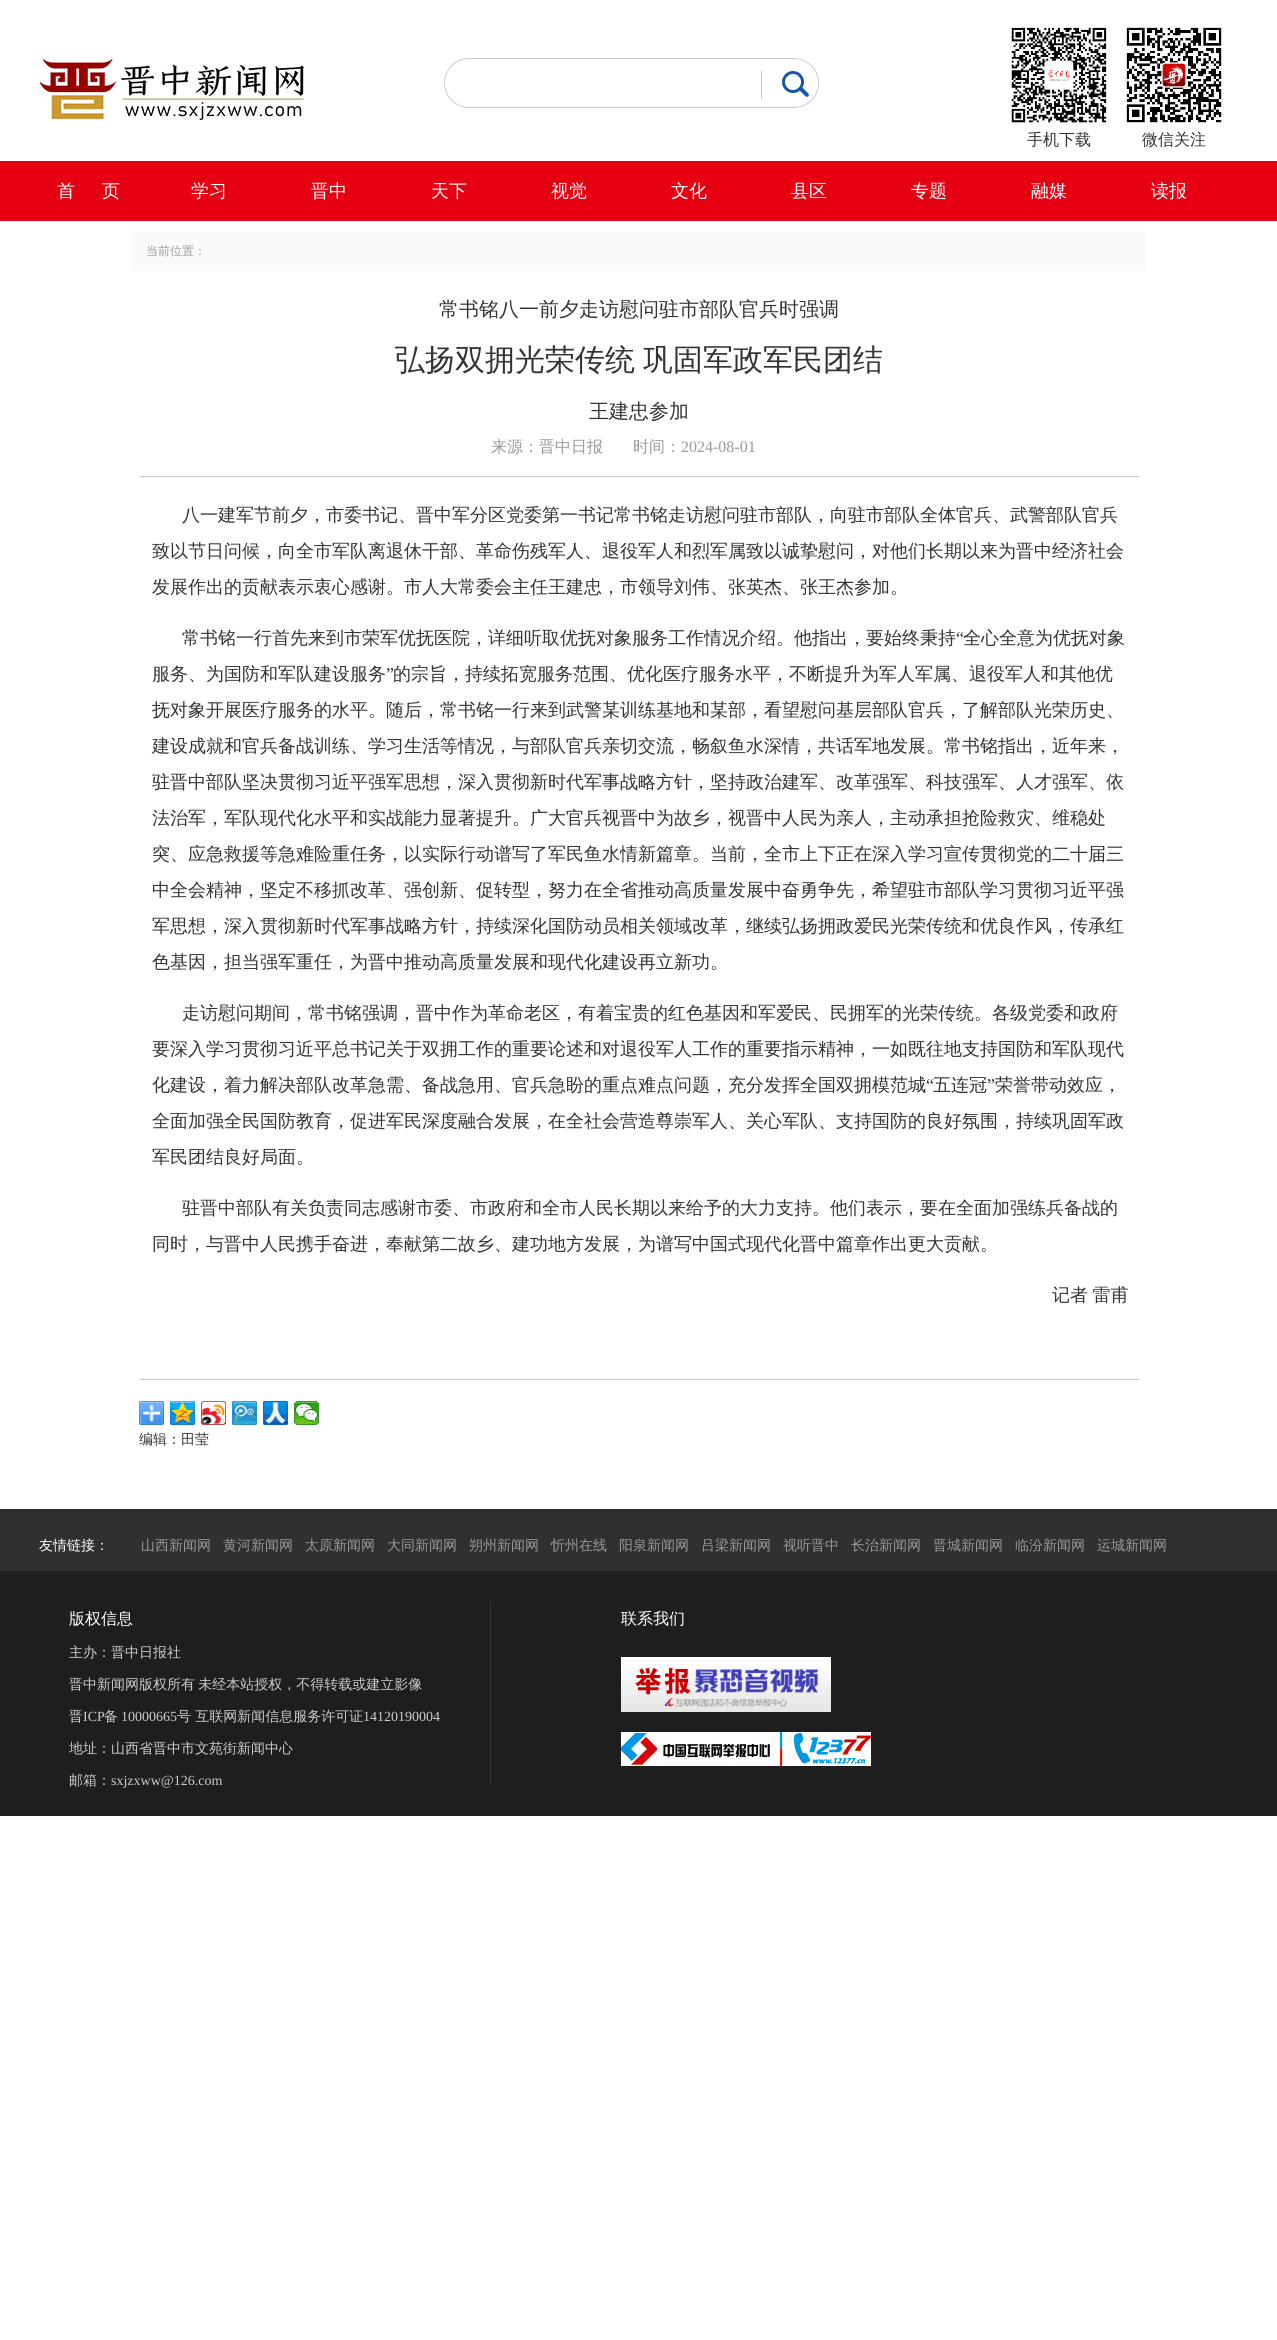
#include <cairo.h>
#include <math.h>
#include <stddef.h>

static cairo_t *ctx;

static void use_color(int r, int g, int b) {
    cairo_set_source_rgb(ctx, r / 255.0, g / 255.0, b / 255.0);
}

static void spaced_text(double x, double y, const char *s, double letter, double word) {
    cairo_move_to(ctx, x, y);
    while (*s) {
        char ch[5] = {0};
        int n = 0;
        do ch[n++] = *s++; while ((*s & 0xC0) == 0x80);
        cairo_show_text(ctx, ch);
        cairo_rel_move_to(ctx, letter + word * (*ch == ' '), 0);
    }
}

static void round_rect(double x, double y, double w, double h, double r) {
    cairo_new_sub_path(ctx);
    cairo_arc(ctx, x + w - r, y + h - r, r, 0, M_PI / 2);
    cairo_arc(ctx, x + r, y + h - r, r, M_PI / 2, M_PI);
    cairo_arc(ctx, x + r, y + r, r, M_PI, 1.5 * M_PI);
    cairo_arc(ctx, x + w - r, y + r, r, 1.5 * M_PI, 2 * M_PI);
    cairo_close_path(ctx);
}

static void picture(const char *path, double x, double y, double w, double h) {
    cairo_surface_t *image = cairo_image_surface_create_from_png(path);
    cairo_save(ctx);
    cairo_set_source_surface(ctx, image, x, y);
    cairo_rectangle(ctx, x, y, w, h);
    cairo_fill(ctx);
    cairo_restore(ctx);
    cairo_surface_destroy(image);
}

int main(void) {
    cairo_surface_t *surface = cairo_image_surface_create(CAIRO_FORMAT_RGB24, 1277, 2340);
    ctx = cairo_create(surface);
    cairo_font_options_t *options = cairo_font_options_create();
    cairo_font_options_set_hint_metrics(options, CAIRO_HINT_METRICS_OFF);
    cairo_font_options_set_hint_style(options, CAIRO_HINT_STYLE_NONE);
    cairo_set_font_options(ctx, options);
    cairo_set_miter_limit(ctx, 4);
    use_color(255, 255, 255);
    cairo_paint(ctx);
    picture("img1.png", 40, 58, 264, 62);
    round_rect(444.5, 58.5, 374, 49, 24.5);
    use_color(204, 204, 204);
    cairo_set_line_width(ctx, 1);
    cairo_stroke(ctx);
    picture("img2.png", 761, 70, 48, 29);
    picture("img3.png", 1011, 27, 96, 96);
    cairo_select_font_face(ctx, "WenQuanYi Zen Hei Medium", CAIRO_FONT_SLANT_NORMAL, CAIRO_FONT_WEIGHT_NORMAL);
    cairo_set_font_size(ctx, 16);
    use_color(51, 51, 51);
    cairo_move_to(ctx, 1027, 145);
    cairo_show_text(ctx, "手机下载");
    picture("img4.png", 1126, 27, 96, 96);
    cairo_move_to(ctx, 1142, 145);
    cairo_show_text(ctx, "微信关注");
    use_color(230, 0, 18);
    cairo_rectangle(ctx, 0, 161, 1277, 60);
    cairo_fill(ctx);
    cairo_set_font_size(ctx, 18);
    use_color(255, 255, 255);
    cairo_move_to(ctx, 57, 197);
    cairo_show_text(ctx, "首");
    cairo_move_to(ctx, 102, 197);
    cairo_show_text(ctx, "页");
    cairo_move_to(ctx, 191, 197);
    cairo_show_text(ctx, "学习");
    cairo_move_to(ctx, 311, 197);
    cairo_show_text(ctx, "晋中");
    cairo_move_to(ctx, 431, 197);
    cairo_show_text(ctx, "天下");
    cairo_move_to(ctx, 551, 197);
    cairo_show_text(ctx, "视觉");
    cairo_move_to(ctx, 671, 197);
    cairo_show_text(ctx, "文化");
    cairo_move_to(ctx, 791, 197);
    cairo_show_text(ctx, "县区");
    cairo_move_to(ctx, 911, 197);
    cairo_show_text(ctx, "专题");
    cairo_move_to(ctx, 1031, 197);
    cairo_show_text(ctx, "融媒");
    cairo_move_to(ctx, 1151, 197);
    cairo_show_text(ctx, "读报");
    use_color(250, 250, 250);
    cairo_rectangle(ctx, 131, 231, 1015, 40);
    cairo_fill(ctx);
    cairo_set_font_size(ctx, 12);
    use_color(153, 153, 153);
    cairo_move_to(ctx, 146, 255);
    cairo_show_text(ctx, "当前位置：");
    use_color(203, 204, 204);
    cairo_rectangle(ctx, 139, 476, 1000, 1);
    cairo_fill(ctx);
    cairo_set_font_size(ctx, 20);
    use_color(51, 51, 51);
    cairo_move_to(ctx, 439, 316);
    cairo_show_text(ctx, "常书铭八一前夕走访慰问驻市部队官兵时强调");
    cairo_set_font_size(ctx, 30);
    spaced_text(395, 370, "弘扬双拥光荣传统 巩固军政军民团结", 0, -1);
    cairo_set_font_size(ctx, 20);
    cairo_move_to(ctx, 589, 418);
    cairo_show_text(ctx, "王建忠参加");
    cairo_set_font_size(ctx, 16);
    use_color(153, 153, 153);
    cairo_move_to(ctx, 491, 452);
    cairo_show_text(ctx, "来源：晋中日报");
    cairo_move_to(ctx, 633, 452);
    cairo_show_text(ctx, "时间：");
    cairo_select_font_face(ctx, "Liberation Serif", CAIRO_FONT_SLANT_NORMAL, CAIRO_FONT_WEIGHT_NORMAL);
    cairo_move_to(ctx, 681, 452);
    cairo_show_text(ctx, "2024-08-01");
    cairo_select_font_face(ctx, "WenQuanYi Zen Hei Medium", CAIRO_FONT_SLANT_NORMAL, CAIRO_FONT_WEIGHT_NORMAL);
    cairo_set_font_size(ctx, 18);
    use_color(51, 51, 51);
    cairo_move_to(ctx, 182, 521);
    cairo_show_text(ctx, "八一建军节前夕，市委书记、晋中军分区党委第一书记常书铭走访慰问驻市部队，向驻市部队全体官兵、武警部队官兵");
    cairo_move_to(ctx, 152, 557);
    cairo_show_text(ctx, "致以节日问候，向全市军队离退休干部、革命伤残军人、退役军人和烈军属致以诚挚慰问，对他们长期以来为晋中经济社会");
    cairo_move_to(ctx, 152, 593);
    cairo_show_text(ctx, "发展作出的贡献表示衷心感谢。市人大常委会主任王建忠，市领导刘伟、张英杰、张王杰参加。");
    cairo_move_to(ctx, 182, 644);
    cairo_show_text(ctx, "常书铭一行首先来到市荣军优抚医院，详细听取优抚对象服务工作情况介绍。他指出，要始终秉持");
    cairo_select_font_face(ctx, "Liberation Serif", CAIRO_FONT_SLANT_NORMAL, CAIRO_FONT_WEIGHT_NORMAL);
    cairo_move_to(ctx, 956, 644);
    cairo_show_text(ctx, "“");
    cairo_select_font_face(ctx, "WenQuanYi Zen Hei Medium", CAIRO_FONT_SLANT_NORMAL, CAIRO_FONT_WEIGHT_NORMAL);
    cairo_move_to(ctx, 963, 644);
    cairo_show_text(ctx, "全心全意为优抚对象");
    cairo_move_to(ctx, 152, 680);
    cairo_show_text(ctx, "服务、为国防和军队建设服务");
    cairo_select_font_face(ctx, "Liberation Serif", CAIRO_FONT_SLANT_NORMAL, CAIRO_FONT_WEIGHT_NORMAL);
    cairo_move_to(ctx, 386, 680);
    cairo_show_text(ctx, "”");
    cairo_select_font_face(ctx, "WenQuanYi Zen Hei Medium", CAIRO_FONT_SLANT_NORMAL, CAIRO_FONT_WEIGHT_NORMAL);
    cairo_move_to(ctx, 393, 680);
    cairo_show_text(ctx, "的宗旨，持续拓宽服务范围、优化医疗服务水平，不断提升为军人军属、退役军人和其他优");
    cairo_move_to(ctx, 152, 716);
    cairo_show_text(ctx, "抚对象开展医疗服务的水平。随后，常书铭一行来到武警某训练基地和某部，看望慰问基层部队官兵，了解部队光荣历史、");
    cairo_move_to(ctx, 152, 752);
    cairo_show_text(ctx, "建设成就和官兵备战训练、学习生活等情况，与部队官兵亲切交流，畅叙鱼水深情，共话军地发展。常书铭指出，近年来，");
    cairo_move_to(ctx, 152, 788);
    cairo_show_text(ctx, "驻晋中部队坚决贯彻习近平强军思想，深入贯彻新时代军事战略方针，坚持政治建军、改革强军、科技强军、人才强军、依");
    cairo_move_to(ctx, 152, 824);
    cairo_show_text(ctx, "法治军，军队现代化水平和实战能力显著提升。广大官兵视晋中为故乡，视晋中人民为亲人，主动承担抢险救灾、维稳处");
    cairo_move_to(ctx, 152, 860);
    cairo_show_text(ctx, "突、应急救援等急难险重任务，以实际行动谱写了军民鱼水情新篇章。当前，全市上下正在深入学习宣传贯彻党的二十届三");
    cairo_move_to(ctx, 152, 896);
    cairo_show_text(ctx, "中全会精神，坚定不移抓改革、强创新、促转型，努力在全省推动高质量发展中奋勇争先，希望驻市部队学习贯彻习近平强");
    cairo_move_to(ctx, 152, 932);
    cairo_show_text(ctx, "军思想，深入贯彻新时代军事战略方针，持续深化国防动员相关领域改革，继续弘扬拥政爱民光荣传统和优良作风，传承红");
    cairo_move_to(ctx, 152, 968);
    cairo_show_text(ctx, "色基因，担当强军重任，为晋中推动高质量发展和现代化建设再立新功。");
    cairo_move_to(ctx, 182, 1019);
    cairo_show_text(ctx, "走访慰问期间，常书铭强调，晋中作为革命老区，有着宝贵的红色基因和军爱民、民拥军的光荣传统。各级党委和政府");
    cairo_move_to(ctx, 152, 1055);
    cairo_show_text(ctx, "要深入学习贯彻习近平总书记关于双拥工作的重要论述和对退役军人工作的重要指示精神，一如既往地支持国防和军队现代");
    cairo_move_to(ctx, 152, 1091);
    cairo_show_text(ctx, "化建设，着力解决部队改革急需、备战急用、官兵急盼的重点难点问题，充分发挥全国双拥模范城");
    cairo_select_font_face(ctx, "Liberation Serif", CAIRO_FONT_SLANT_NORMAL, CAIRO_FONT_WEIGHT_NORMAL);
    cairo_move_to(ctx, 926, 1091);
    cairo_show_text(ctx, "“");
    cairo_select_font_face(ctx, "WenQuanYi Zen Hei Medium", CAIRO_FONT_SLANT_NORMAL, CAIRO_FONT_WEIGHT_NORMAL);
    cairo_move_to(ctx, 933, 1091);
    cairo_show_text(ctx, "五连冠");
    cairo_select_font_face(ctx, "Liberation Serif", CAIRO_FONT_SLANT_NORMAL, CAIRO_FONT_WEIGHT_NORMAL);
    cairo_move_to(ctx, 987, 1091);
    cairo_show_text(ctx, "”");
    cairo_select_font_face(ctx, "WenQuanYi Zen Hei Medium", CAIRO_FONT_SLANT_NORMAL, CAIRO_FONT_WEIGHT_NORMAL);
    cairo_move_to(ctx, 995, 1091);
    cairo_show_text(ctx, "荣誉带动效应，");
    cairo_move_to(ctx, 152, 1127);
    cairo_show_text(ctx, "全面加强全民国防教育，促进军民深度融合发展，在全社会营造尊崇军人、关心军队、支持国防的良好氛围，持续巩固军政");
    cairo_move_to(ctx, 152, 1163);
    cairo_show_text(ctx, "军民团结良好局面。");
    cairo_move_to(ctx, 182, 1214);
    cairo_show_text(ctx, "驻晋中部队有关负责同志感谢市委、市政府和全市人民长期以来给予的大力支持。他们表示，要在全面加强练兵备战的");
    cairo_move_to(ctx, 152, 1250);
    cairo_show_text(ctx, "同时，与晋中人民携手奋进，奉献第二故乡、建功地方发展，为谱写中国式现代化晋中篇章作出更大贡献。");
    spaced_text(1052, 1301, "记者 雷甫", 0, -1);
    use_color(203, 204, 204);
    cairo_rectangle(ctx, 139, 1379, 1000, 1);
    cairo_fill(ctx);
    picture("img5.png", 139, 1401, 25, 24);
    picture("img6.png", 170, 1401, 25, 24);
    picture("img7.png", 201, 1401, 25, 24);
    picture("img8.png", 232, 1401, 25, 24);
    picture("img9.png", 263, 1401, 25, 24);
    picture("img10.png", 294, 1401, 25, 24);
    cairo_save(ctx);
    cairo_rectangle(ctx, 139, 1380, 1000, 89);
    cairo_clip(ctx);
    cairo_set_font_size(ctx, 14);
    use_color(51, 51, 51);
    cairo_move_to(ctx, 139, 1444);
    cairo_show_text(ctx, "编辑：田莹");
    cairo_restore(ctx);
    use_color(48, 48, 48);
    cairo_rectangle(ctx, 0, 1509, 1277, 62);
    cairo_fill(ctx);
    cairo_set_font_size(ctx, 14);
    use_color(255, 255, 255);
    cairo_move_to(ctx, 39, 1550);
    cairo_show_text(ctx, "友情链接：");
    use_color(153, 153, 153);
    cairo_move_to(ctx, 141, 1550);
    cairo_show_text(ctx, "山西新闻网");
    cairo_move_to(ctx, 223, 1550);
    cairo_show_text(ctx, "黄河新闻网");
    cairo_move_to(ctx, 305, 1550);
    cairo_show_text(ctx, "太原新闻网");
    cairo_move_to(ctx, 387, 1550);
    cairo_show_text(ctx, "大同新闻网");
    cairo_move_to(ctx, 469, 1550);
    cairo_show_text(ctx, "朔州新闻网");
    cairo_move_to(ctx, 551, 1550);
    cairo_show_text(ctx, "忻州在线");
    cairo_move_to(ctx, 619, 1550);
    cairo_show_text(ctx, "阳泉新闻网");
    cairo_move_to(ctx, 701, 1550);
    cairo_show_text(ctx, "吕梁新闻网");
    cairo_move_to(ctx, 783, 1550);
    cairo_show_text(ctx, "视听晋中");
    cairo_move_to(ctx, 851, 1550);
    cairo_show_text(ctx, "长治新闻网");
    cairo_move_to(ctx, 933, 1550);
    cairo_show_text(ctx, "晋城新闻网");
    cairo_move_to(ctx, 1015, 1550);
    cairo_show_text(ctx, "临汾新闻网");
    cairo_move_to(ctx, 1097, 1550);
    cairo_show_text(ctx, "运城新闻网");
    use_color(30, 30, 30);
    cairo_rectangle(ctx, 0, 1571, 1277, 245);
    cairo_fill(ctx);
    use_color(51, 51, 51);
    cairo_rectangle(ctx, 490, 1601, 1, 185);
    cairo_fill(ctx);
    cairo_set_font_size(ctx, 16);
    use_color(255, 255, 255);
    cairo_move_to(ctx, 69, 1624);
    cairo_show_text(ctx, "版权信息");
    cairo_set_font_size(ctx, 14);
    use_color(204, 204, 204);
    cairo_move_to(ctx, 69, 1657);
    cairo_show_text(ctx, "主办：晋中日报社");
    spaced_text(69, 1689, "晋中新闻网版权所有 未经本站授权，不得转载或建立影像", 0, -1);
    cairo_move_to(ctx, 69, 1721);
    cairo_show_text(ctx, "晋");
    cairo_select_font_face(ctx, "Liberation Serif", CAIRO_FONT_SLANT_NORMAL, CAIRO_FONT_WEIGHT_NORMAL);
    cairo_move_to(ctx, 83, 1721);
    cairo_show_text(ctx, "ICP");
    cairo_select_font_face(ctx, "WenQuanYi Zen Hei Medium", CAIRO_FONT_SLANT_NORMAL, CAIRO_FONT_WEIGHT_NORMAL);
    cairo_move_to(ctx, 104, 1721);
    cairo_show_text(ctx, "备");
    cairo_select_font_face(ctx, "Liberation Serif", CAIRO_FONT_SLANT_NORMAL, CAIRO_FONT_WEIGHT_NORMAL);
    cairo_move_to(ctx, 121, 1721);
    cairo_show_text(ctx, "10000665");
    cairo_select_font_face(ctx, "WenQuanYi Zen Hei Medium", CAIRO_FONT_SLANT_NORMAL, CAIRO_FONT_WEIGHT_NORMAL);
    cairo_move_to(ctx, 177, 1721);
    cairo_show_text(ctx, "号 互联网新闻信息服务许可证");
    cairo_select_font_face(ctx, "Liberation Serif", CAIRO_FONT_SLANT_NORMAL, CAIRO_FONT_WEIGHT_NORMAL);
    cairo_move_to(ctx, 363, 1721);
    cairo_show_text(ctx, "14120190004");
    cairo_select_font_face(ctx, "WenQuanYi Zen Hei Medium", CAIRO_FONT_SLANT_NORMAL, CAIRO_FONT_WEIGHT_NORMAL);
    cairo_move_to(ctx, 69, 1753);
    cairo_show_text(ctx, "地址：山西省晋中市文苑街新闻中心");
    cairo_move_to(ctx, 69, 1785);
    cairo_show_text(ctx, "邮箱：");
    cairo_select_font_face(ctx, "Liberation Serif", CAIRO_FONT_SLANT_NORMAL, CAIRO_FONT_WEIGHT_NORMAL);
    cairo_move_to(ctx, 111, 1785);
    cairo_show_text(ctx, "sxjzxww@126.com");
    cairo_select_font_face(ctx, "WenQuanYi Zen Hei Medium", CAIRO_FONT_SLANT_NORMAL, CAIRO_FONT_WEIGHT_NORMAL);
    cairo_set_font_size(ctx, 16);
    use_color(255, 255, 255);
    cairo_move_to(ctx, 621, 1624);
    cairo_show_text(ctx, "联系我们");
    picture("img11.png", 621, 1657, 210, 55);
    picture("img12.png", 621, 1732, 250, 34);
    cairo_surface_write_to_png(surface, "result.png");
    cairo_font_options_destroy(options);
    cairo_destroy(ctx);
    cairo_surface_destroy(surface);
    return 0;
}
